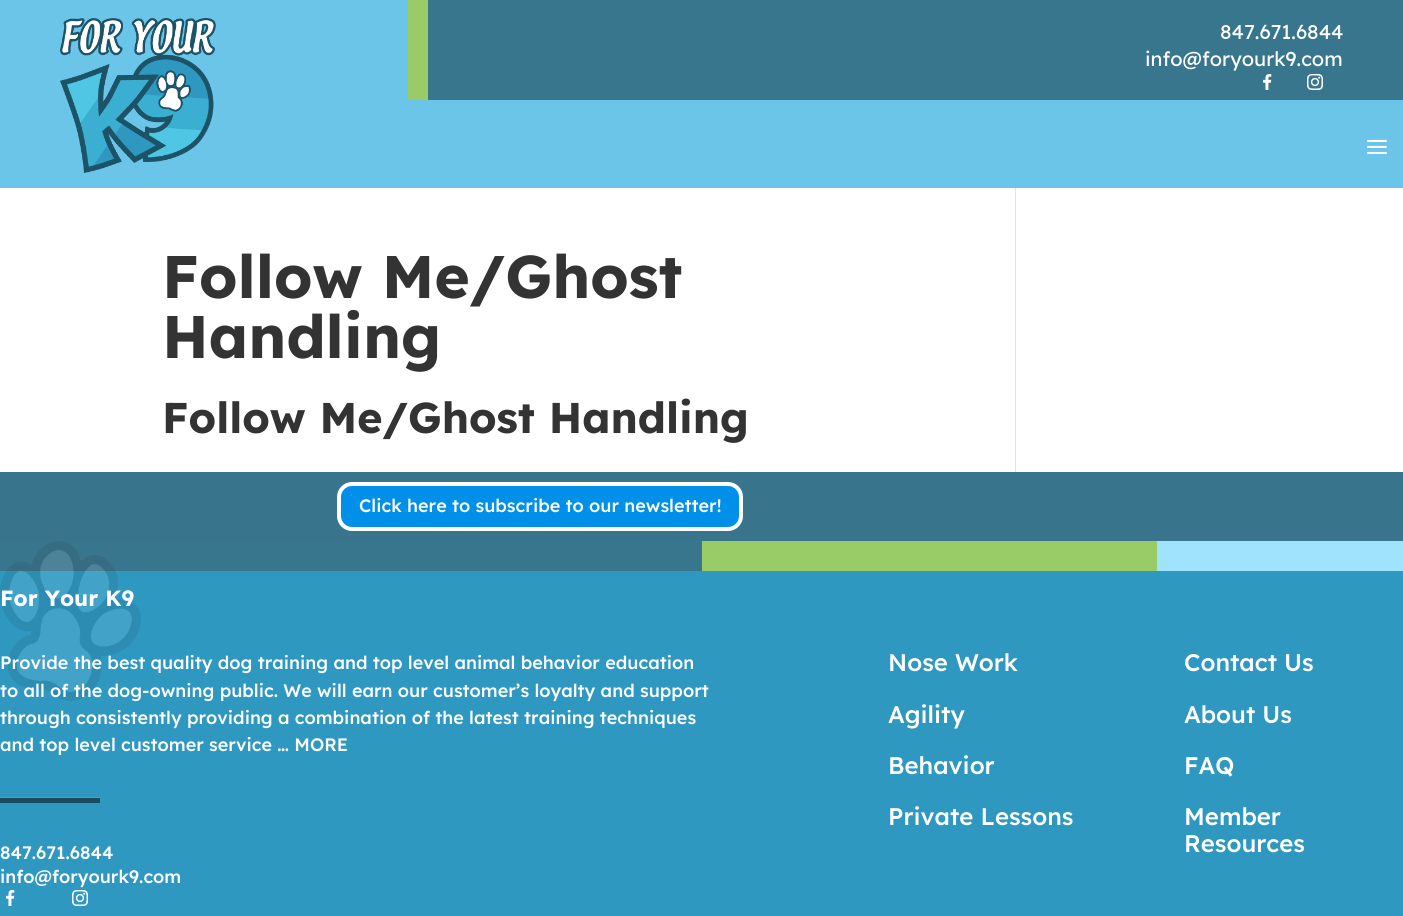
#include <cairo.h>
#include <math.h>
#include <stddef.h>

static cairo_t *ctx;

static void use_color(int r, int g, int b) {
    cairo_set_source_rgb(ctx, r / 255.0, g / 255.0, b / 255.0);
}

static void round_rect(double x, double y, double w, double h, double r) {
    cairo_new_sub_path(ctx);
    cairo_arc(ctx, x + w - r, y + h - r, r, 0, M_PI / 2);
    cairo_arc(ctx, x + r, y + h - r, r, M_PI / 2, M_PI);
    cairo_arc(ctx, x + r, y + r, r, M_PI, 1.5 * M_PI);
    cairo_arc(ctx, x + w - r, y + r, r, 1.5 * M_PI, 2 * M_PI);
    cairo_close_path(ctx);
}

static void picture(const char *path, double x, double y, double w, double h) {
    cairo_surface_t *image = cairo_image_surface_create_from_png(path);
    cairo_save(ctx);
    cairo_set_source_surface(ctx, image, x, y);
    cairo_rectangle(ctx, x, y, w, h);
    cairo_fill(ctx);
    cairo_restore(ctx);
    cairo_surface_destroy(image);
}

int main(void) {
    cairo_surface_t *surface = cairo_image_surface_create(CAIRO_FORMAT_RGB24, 1403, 916);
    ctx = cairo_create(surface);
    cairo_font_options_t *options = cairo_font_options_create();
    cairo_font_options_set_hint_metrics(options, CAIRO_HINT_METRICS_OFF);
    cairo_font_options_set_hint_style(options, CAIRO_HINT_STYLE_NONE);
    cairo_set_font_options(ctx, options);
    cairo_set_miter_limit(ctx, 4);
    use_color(255, 255, 255);
    cairo_paint(ctx);
    use_color(106, 197, 233);
    cairo_rectangle(ctx, 0, 0, 1403, 188);
    cairo_fill(ctx);
    picture("img1.png", 60, 18, 156, 155);
    use_color(153, 204, 102);
    cairo_rectangle(ctx, 408, 0, 20, 100);
    cairo_fill(ctx);
    use_color(56, 118, 141);
    cairo_rectangle(ctx, 428, 0, 975, 100);
    cairo_fill(ctx);
    cairo_select_font_face(ctx, "Lexend", CAIRO_FONT_SLANT_NORMAL, CAIRO_FONT_WEIGHT_NORMAL);
    cairo_set_font_size(ctx, 20);
    use_color(255, 255, 255);
    cairo_move_to(ctx, 1220, 39);
    cairo_show_text(ctx, "847.671.6844");
    cairo_move_to(ctx, 1145, 66);
    cairo_show_text(ctx, "info@foryourk9.com");
    picture("img2.png", 1263, 74, 9, 16);
    picture("img3.png", 1307, 74, 16, 16);
    picture("img4.png", 1367, 139, 20, 15);
    cairo_select_font_face(ctx, "Lexend", CAIRO_FONT_SLANT_NORMAL, CAIRO_FONT_WEIGHT_BOLD);
    cairo_set_font_size(ctx, 60);
    use_color(51, 51, 51);
    cairo_move_to(ctx, 162, 298);
    cairo_show_text(ctx, "Follow Me/Ghost");
    cairo_move_to(ctx, 162, 358);
    cairo_show_text(ctx, "Handling");
    cairo_set_font_size(ctx, 43);
    cairo_move_to(ctx, 162, 433);
    cairo_show_text(ctx, "Follow Me/Ghost Handling");
    use_color(226, 226, 226);
    cairo_rectangle(ctx, 1015, 188, 1, 284);
    cairo_fill(ctx);
    use_color(56, 117, 141);
    cairo_rectangle(ctx, 0, 472, 1403, 69);
    cairo_fill(ctx);
    use_color(0, 144, 234);
    round_rect(339, 484, 402, 45, 13);
    cairo_fill_preserve(ctx);
    use_color(255, 255, 255);
    cairo_set_line_width(ctx, 4);
    cairo_stroke(ctx);
    cairo_select_font_face(ctx, "Lexend Medium", CAIRO_FONT_SLANT_NORMAL, CAIRO_FONT_WEIGHT_NORMAL);
    cairo_set_font_size(ctx, 18);
    cairo_move_to(ctx, 359, 512);
    cairo_show_text(ctx, "Click here to subscribe to our newsletter!");
    use_color(46, 152, 193);
    cairo_rectangle(ctx, 0, 571, 1403, 345);
    cairo_fill(ctx);
    use_color(56, 118, 141);
    cairo_rectangle(ctx, 0, 541, 702, 30);
    cairo_fill(ctx);
    picture("img5.png", 0, 541, 141, 160);
    use_color(153, 204, 102);
    cairo_rectangle(ctx, 702, 541, 455, 30);
    cairo_fill(ctx);
    use_color(159, 227, 253);
    cairo_rectangle(ctx, 1157, 541, 246, 30);
    cairo_fill(ctx);
    cairo_select_font_face(ctx, "Lexend", CAIRO_FONT_SLANT_NORMAL, CAIRO_FONT_WEIGHT_BOLD);
    cairo_set_font_size(ctx, 22);
    use_color(255, 255, 255);
    cairo_move_to(ctx, 0, 606);
    cairo_show_text(ctx, "For Your K9");
    cairo_select_font_face(ctx, "Lexend Medium", CAIRO_FONT_SLANT_NORMAL, CAIRO_FONT_WEIGHT_NORMAL);
    cairo_set_font_size(ctx, 18);
    cairo_move_to(ctx, 0, 669);
    cairo_show_text(ctx, "Provide the best quality dog training and top level animal behavior education");
    cairo_move_to(ctx, 0, 697);
    cairo_show_text(ctx, "to all of the dog-owning public. We will earn our customer’s loyalty and support");
    cairo_move_to(ctx, 0, 724);
    cairo_show_text(ctx, "through consistently providing a combination of the latest training techniques");
    cairo_move_to(ctx, 0, 751);
    cairo_show_text(ctx, "and top level customer service … MORE");
    use_color(23, 76, 97);
    cairo_rectangle(ctx, 0, 798, 100, 5);
    cairo_fill(ctx);
    use_color(46, 163, 242);
    cairo_rectangle(ctx, 0, 797, 100, 1);
    cairo_fill(ctx);
    use_color(255, 255, 255);
    cairo_move_to(ctx, 0, 859);
    cairo_show_text(ctx, "847.671.6844");
    cairo_move_to(ctx, 0, 883);
    cairo_show_text(ctx, "info@foryourk9.com");
    picture("img6.png", 6, 890, 9, 16);
    picture("img7.png", 72, 890, 16, 16);
    cairo_set_font_size(ctx, 24);
    cairo_move_to(ctx, 888, 671);
    cairo_show_text(ctx, "Nose Work");
    cairo_move_to(ctx, 888, 723);
    cairo_show_text(ctx, "Agility");
    cairo_move_to(ctx, 888, 774);
    cairo_show_text(ctx, "Behavior");
    cairo_move_to(ctx, 888, 825);
    cairo_show_text(ctx, "Private Lessons");
    cairo_move_to(ctx, 1184, 671);
    cairo_show_text(ctx, "Contact Us");
    cairo_move_to(ctx, 1184, 723);
    cairo_show_text(ctx, "About Us");
    cairo_move_to(ctx, 1184, 774);
    cairo_show_text(ctx, "FAQ");
    cairo_move_to(ctx, 1184, 825);
    cairo_show_text(ctx, "Member");
    cairo_move_to(ctx, 1184, 852);
    cairo_show_text(ctx, "Resources");
    cairo_surface_write_to_png(surface, "result.png");
    cairo_font_options_destroy(options);
    cairo_destroy(ctx);
    cairo_surface_destroy(surface);
    return 0;
}
